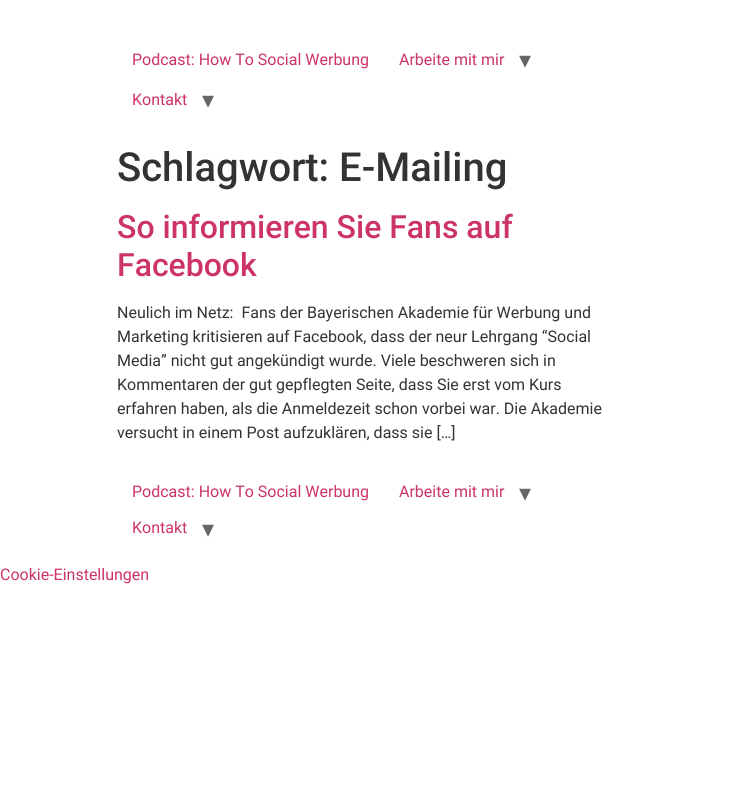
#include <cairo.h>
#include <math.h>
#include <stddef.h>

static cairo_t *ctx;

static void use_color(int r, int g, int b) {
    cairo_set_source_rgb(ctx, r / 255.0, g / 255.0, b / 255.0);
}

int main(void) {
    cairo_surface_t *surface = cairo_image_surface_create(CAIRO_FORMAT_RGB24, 734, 807);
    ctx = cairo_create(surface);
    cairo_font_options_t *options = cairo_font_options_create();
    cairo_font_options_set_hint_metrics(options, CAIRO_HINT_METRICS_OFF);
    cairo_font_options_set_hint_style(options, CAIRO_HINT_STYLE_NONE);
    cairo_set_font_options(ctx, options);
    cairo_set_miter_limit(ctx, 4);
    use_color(255, 255, 255);
    cairo_paint(ctx);
    cairo_select_font_face(ctx, "Roboto", CAIRO_FONT_SLANT_NORMAL, CAIRO_FONT_WEIGHT_NORMAL);
    cairo_set_font_size(ctx, 16);
    use_color(204, 51, 102);
    cairo_move_to(ctx, 132, 65);
    cairo_show_text(ctx, "Podcast: How To Social Werbung");
    cairo_move_to(ctx, 399, 65);
    cairo_show_text(ctx, "Arbeite mit mir");
    cairo_select_font_face(ctx, "DejaVu Sans", CAIRO_FONT_SLANT_NORMAL, CAIRO_FONT_WEIGHT_NORMAL);
    cairo_set_font_size(ctx, 24);
    use_color(102, 102, 102);
    cairo_move_to(ctx, 519, 68);
    cairo_show_text(ctx, "▾");
    cairo_select_font_face(ctx, "Roboto", CAIRO_FONT_SLANT_NORMAL, CAIRO_FONT_WEIGHT_NORMAL);
    cairo_set_font_size(ctx, 16);
    use_color(204, 51, 102);
    cairo_move_to(ctx, 132, 105);
    cairo_show_text(ctx, "Kontakt");
    cairo_select_font_face(ctx, "DejaVu Sans", CAIRO_FONT_SLANT_NORMAL, CAIRO_FONT_WEIGHT_NORMAL);
    cairo_set_font_size(ctx, 24);
    use_color(102, 102, 102);
    cairo_move_to(ctx, 202, 108);
    cairo_show_text(ctx, "▾");
    cairo_select_font_face(ctx, "Roboto Medium", CAIRO_FONT_SLANT_NORMAL, CAIRO_FONT_WEIGHT_NORMAL);
    cairo_set_font_size(ctx, 40);
    use_color(51, 51, 51);
    cairo_move_to(ctx, 117, 181);
    cairo_show_text(ctx, "Schlagwort: E-Mailing");
    cairo_set_font_size(ctx, 32);
    use_color(204, 51, 102);
    cairo_move_to(ctx, 117, 238);
    cairo_show_text(ctx, "So informieren Sie Fans auf");
    cairo_move_to(ctx, 117, 276);
    cairo_show_text(ctx, "Facebook");
    cairo_select_font_face(ctx, "Roboto", CAIRO_FONT_SLANT_NORMAL, CAIRO_FONT_WEIGHT_NORMAL);
    cairo_set_font_size(ctx, 16);
    use_color(51, 51, 51);
    cairo_move_to(ctx, 117, 318);
    cairo_show_text(ctx, "Neulich im Netz:  Fans der Bayerischen Akademie für Werbung und");
    cairo_move_to(ctx, 117, 342);
    cairo_show_text(ctx, "Marketing kritisieren auf Facebook, dass der neur Lehrgang “Social");
    cairo_move_to(ctx, 117, 366);
    cairo_show_text(ctx, "Media” nicht gut angekündigt wurde. Viele beschweren sich in");
    cairo_move_to(ctx, 117, 390);
    cairo_show_text(ctx, "Kommentaren der gut gepflegten Seite, dass Sie erst vom Kurs");
    cairo_move_to(ctx, 117, 414);
    cairo_show_text(ctx, "erfahren haben, als die Anmeldezeit schon vorbei war. Die Akademie");
    cairo_move_to(ctx, 117, 438);
    cairo_show_text(ctx, "versucht in einem Post aufzuklären, dass sie […]");
    use_color(204, 51, 102);
    cairo_move_to(ctx, 132, 497);
    cairo_show_text(ctx, "Podcast: How To Social Werbung");
    cairo_move_to(ctx, 399, 497);
    cairo_show_text(ctx, "Arbeite mit mir");
    cairo_select_font_face(ctx, "DejaVu Sans", CAIRO_FONT_SLANT_NORMAL, CAIRO_FONT_WEIGHT_NORMAL);
    cairo_set_font_size(ctx, 24);
    use_color(102, 102, 102);
    cairo_move_to(ctx, 519, 501);
    cairo_show_text(ctx, "▾");
    cairo_select_font_face(ctx, "Roboto", CAIRO_FONT_SLANT_NORMAL, CAIRO_FONT_WEIGHT_NORMAL);
    cairo_set_font_size(ctx, 16);
    use_color(204, 51, 102);
    cairo_move_to(ctx, 132, 533);
    cairo_show_text(ctx, "Kontakt");
    cairo_select_font_face(ctx, "DejaVu Sans", CAIRO_FONT_SLANT_NORMAL, CAIRO_FONT_WEIGHT_NORMAL);
    cairo_set_font_size(ctx, 24);
    use_color(102, 102, 102);
    cairo_move_to(ctx, 202, 537);
    cairo_show_text(ctx, "▾");
    cairo_select_font_face(ctx, "Roboto", CAIRO_FONT_SLANT_NORMAL, CAIRO_FONT_WEIGHT_NORMAL);
    cairo_set_font_size(ctx, 16);
    use_color(204, 51, 102);
    cairo_move_to(ctx, 0, 580);
    cairo_show_text(ctx, "Cookie-Einstellungen");
    cairo_surface_write_to_png(surface, "result.png");
    cairo_font_options_destroy(options);
    cairo_destroy(ctx);
    cairo_surface_destroy(surface);
    return 0;
}
